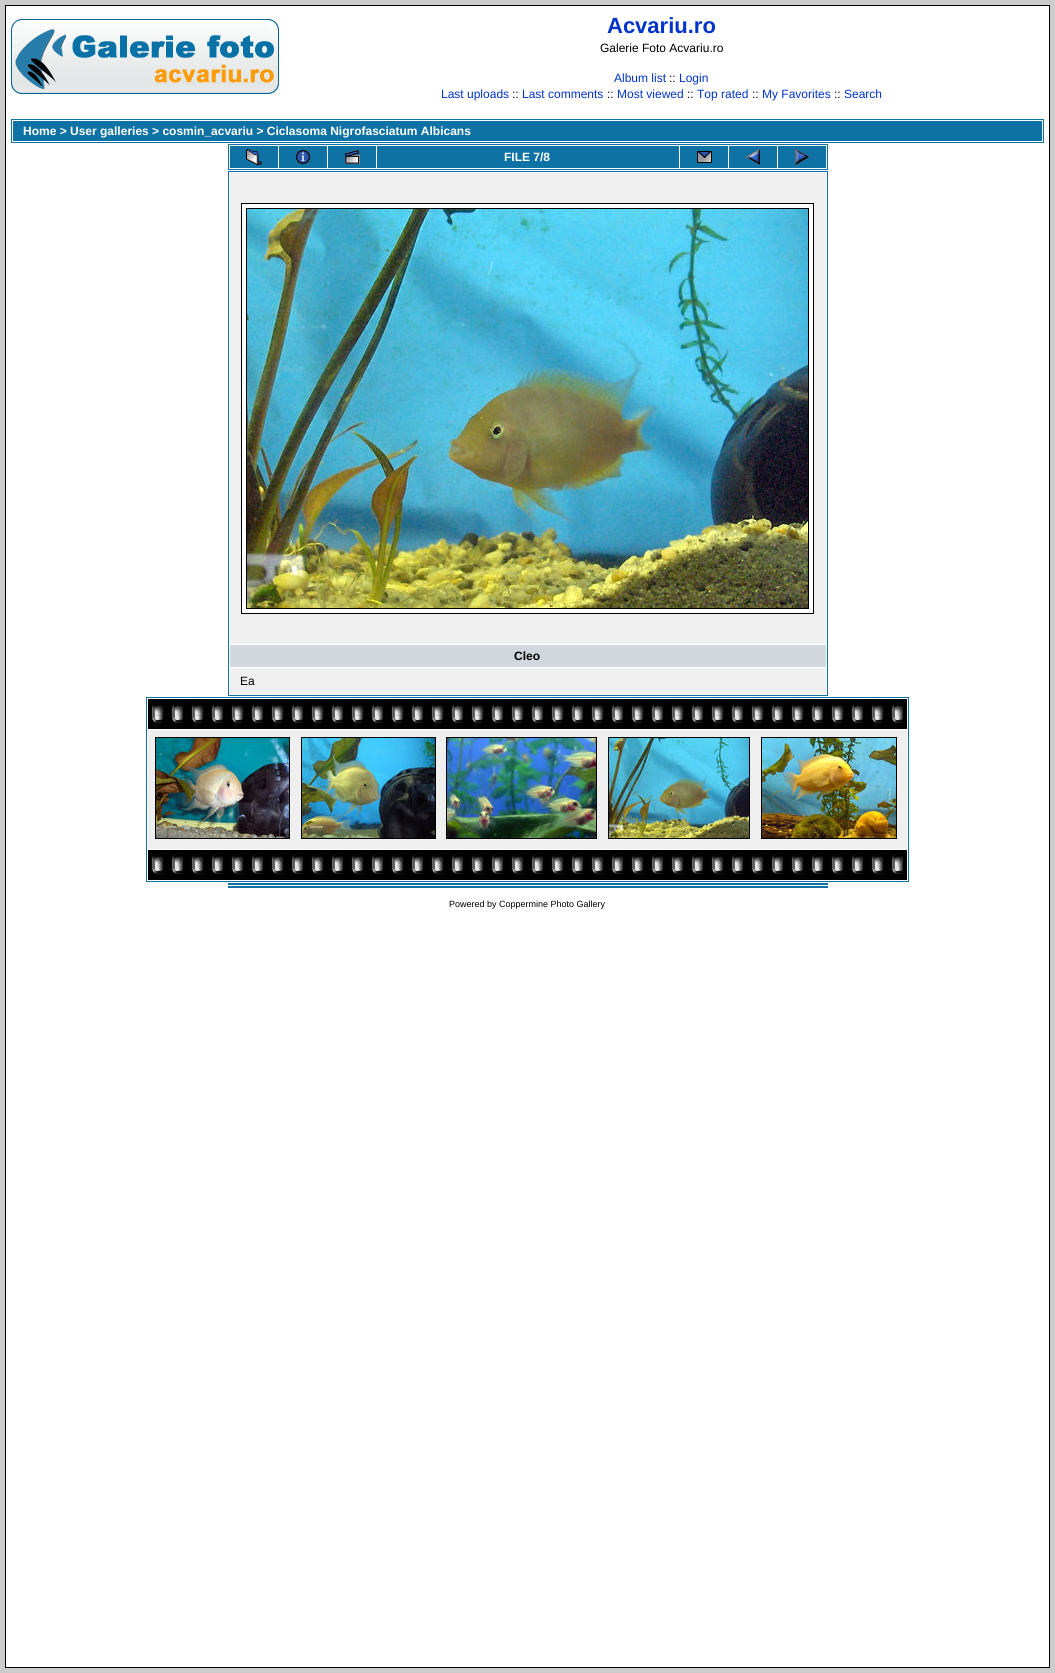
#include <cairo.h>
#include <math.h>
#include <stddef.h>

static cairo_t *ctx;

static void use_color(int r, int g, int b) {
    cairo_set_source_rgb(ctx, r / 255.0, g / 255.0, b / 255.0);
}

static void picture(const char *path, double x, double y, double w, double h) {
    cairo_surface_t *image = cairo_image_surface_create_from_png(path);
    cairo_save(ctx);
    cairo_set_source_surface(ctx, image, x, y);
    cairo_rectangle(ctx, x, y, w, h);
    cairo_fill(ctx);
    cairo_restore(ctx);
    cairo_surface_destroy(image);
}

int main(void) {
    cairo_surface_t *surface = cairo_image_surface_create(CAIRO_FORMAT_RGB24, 1055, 1673);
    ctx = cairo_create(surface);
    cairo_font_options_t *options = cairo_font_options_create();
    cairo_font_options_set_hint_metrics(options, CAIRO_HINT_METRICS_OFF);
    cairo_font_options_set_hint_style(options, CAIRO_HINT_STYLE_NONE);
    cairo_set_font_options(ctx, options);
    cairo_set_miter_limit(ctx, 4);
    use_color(204, 204, 204);
    cairo_paint(ctx);
    use_color(255, 255, 255);
    cairo_rectangle(ctx, 5.5, 5.5, 1044, 1662);
    cairo_fill_preserve(ctx);
    use_color(0, 0, 0);
    cairo_set_line_width(ctx, 1);
    cairo_stroke(ctx);
    picture("img1.png", 11, 19, 268, 75);
    cairo_select_font_face(ctx, "Liberation Sans", CAIRO_FONT_SLANT_NORMAL, CAIRO_FONT_WEIGHT_BOLD);
    cairo_set_font_size(ctx, 22);
    use_color(0, 51, 204);
    cairo_move_to(ctx, 607, 33);
    cairo_show_text(ctx, "Acvariu.ro");
    cairo_select_font_face(ctx, "Liberation Sans", CAIRO_FONT_SLANT_NORMAL, CAIRO_FONT_WEIGHT_NORMAL);
    cairo_set_font_size(ctx, 12);
    use_color(0, 0, 0);
    cairo_move_to(ctx, 600, 52);
    cairo_show_text(ctx, "Galerie Foto Acvariu.ro");
    use_color(0, 51, 204);
    cairo_move_to(ctx, 614, 82);
    cairo_show_text(ctx, "Album list");
    use_color(0, 0, 0);
    cairo_move_to(ctx, 669, 82);
    cairo_show_text(ctx, "::");
    use_color(0, 51, 204);
    cairo_move_to(ctx, 679, 82);
    cairo_show_text(ctx, "Login");
    cairo_move_to(ctx, 441, 98);
    cairo_show_text(ctx, "Last uploads");
    use_color(0, 0, 0);
    cairo_move_to(ctx, 512, 98);
    cairo_show_text(ctx, "::");
    use_color(0, 51, 204);
    cairo_move_to(ctx, 522, 98);
    cairo_show_text(ctx, "Last comments");
    use_color(0, 0, 0);
    cairo_move_to(ctx, 607, 98);
    cairo_show_text(ctx, "::");
    use_color(0, 51, 204);
    cairo_move_to(ctx, 617, 98);
    cairo_show_text(ctx, "Most viewed");
    use_color(0, 0, 0);
    cairo_move_to(ctx, 687, 98);
    cairo_show_text(ctx, "::");
    use_color(0, 51, 204);
    cairo_move_to(ctx, 697, 98);
    cairo_show_text(ctx, "Top rated");
    use_color(0, 0, 0);
    cairo_move_to(ctx, 752, 98);
    cairo_show_text(ctx, "::");
    use_color(0, 51, 204);
    cairo_move_to(ctx, 762, 98);
    cairo_show_text(ctx, "My Favorites");
    use_color(0, 0, 0);
    cairo_move_to(ctx, 834, 98);
    cairo_show_text(ctx, "::");
    use_color(0, 51, 204);
    cairo_move_to(ctx, 844, 98);
    cairo_show_text(ctx, "Search");
    cairo_rectangle(ctx, 11.5, 119.5, 1032, 23);
    use_color(14, 114, 164);
    cairo_stroke(ctx);
    cairo_rectangle(ctx, 13, 121, 1029, 20);
    cairo_fill(ctx);
    cairo_select_font_face(ctx, "Liberation Sans", CAIRO_FONT_SLANT_NORMAL, CAIRO_FONT_WEIGHT_BOLD);
    use_color(255, 255, 255);
    cairo_move_to(ctx, 23, 135);
    cairo_show_text(ctx, "Home > User galleries > cosmin_acvariu > Ciclasoma Nigrofasciatum Albicans");
    cairo_rectangle(ctx, 228.5, 144.5, 599, 25);
    use_color(14, 114, 164);
    cairo_stroke(ctx);
    cairo_rectangle(ctx, 230, 146, 48, 22);
    cairo_fill(ctx);
    picture("img2.png", 246, 149, 16, 16);
    cairo_rectangle(ctx, 279, 146, 48, 22);
    cairo_fill(ctx);
    picture("img3.png", 296, 150, 14, 14);
    cairo_rectangle(ctx, 328, 146, 48, 22);
    cairo_fill(ctx);
    picture("img4.png", 345, 150, 15, 14);
    cairo_rectangle(ctx, 377, 146, 302, 22);
    cairo_fill(ctx);
    use_color(255, 255, 255);
    cairo_move_to(ctx, 504, 161);
    cairo_show_text(ctx, "FILE 7/8");
    use_color(14, 114, 164);
    cairo_rectangle(ctx, 680, 146, 48, 22);
    cairo_fill(ctx);
    picture("img5.png", 697, 151, 15, 12);
    cairo_rectangle(ctx, 729, 146, 48, 22);
    cairo_fill(ctx);
    picture("img6.png", 746, 149, 14, 16);
    cairo_rectangle(ctx, 778, 146, 48, 22);
    cairo_fill(ctx);
    picture("img7.png", 795, 149, 14, 16);
    cairo_rectangle(ctx, 228.5, 171.5, 599, 524);
    cairo_stroke(ctx);
    use_color(239, 239, 239);
    cairo_rectangle(ctx, 230, 173, 596, 471);
    cairo_fill(ctx);
    use_color(255, 255, 255);
    cairo_rectangle(ctx, 241.5, 203.5, 572, 410);
    cairo_fill_preserve(ctx);
    use_color(0, 0, 0);
    cairo_stroke(ctx);
    cairo_rectangle(ctx, 246.5, 208.5, 562, 400);
    cairo_stroke(ctx);
    picture("img8.png", 247, 209, 561, 399);
    use_color(209, 215, 220);
    cairo_rectangle(ctx, 230, 645, 596, 22);
    cairo_fill(ctx);
    use_color(0, 0, 0);
    cairo_move_to(ctx, 514, 660);
    cairo_show_text(ctx, "Cleo");
    use_color(239, 239, 239);
    cairo_rectangle(ctx, 230, 668, 596, 26);
    cairo_fill(ctx);
    cairo_select_font_face(ctx, "Liberation Sans", CAIRO_FONT_SLANT_NORMAL, CAIRO_FONT_WEIGHT_NORMAL);
    use_color(0, 0, 0);
    cairo_move_to(ctx, 240, 685);
    cairo_show_text(ctx, "Ea");
    cairo_rectangle(ctx, 146.5, 697.5, 762, 184);
    use_color(14, 114, 164);
    cairo_stroke(ctx);
    picture("img9.png", 148, 699, 759, 30);
    use_color(239, 239, 239);
    cairo_rectangle(ctx, 148, 730, 759, 119);
    cairo_fill(ctx);
    cairo_rectangle(ctx, 155.5, 737.5, 134, 101);
    use_color(0, 0, 0);
    cairo_stroke(ctx);
    cairo_rectangle(ctx, 301.5, 737.5, 134, 101);
    cairo_stroke(ctx);
    cairo_rectangle(ctx, 446.5, 737.5, 150, 101);
    cairo_stroke(ctx);
    cairo_rectangle(ctx, 608.5, 737.5, 141, 101);
    cairo_stroke(ctx);
    cairo_rectangle(ctx, 761.5, 737.5, 135, 101);
    cairo_stroke(ctx);
    picture("img10.png", 156, 738, 133, 100);
    picture("img11.png", 302, 738, 133, 100);
    picture("img12.png", 447, 738, 149, 100);
    picture("img13.png", 609, 738, 140, 100);
    picture("img14.png", 762, 738, 134, 100);
    picture("img9.png", 148, 850, 759, 30);
    use_color(14, 114, 164);
    cairo_rectangle(ctx, 228, 883, 600, 2);
    cairo_fill(ctx);
    cairo_rectangle(ctx, 228, 886, 600, 2);
    cairo_fill(ctx);
    cairo_set_font_size(ctx, 9);
    use_color(0, 0, 0);
    cairo_move_to(ctx, 449, 907);
    cairo_show_text(ctx, "Powered by Coppermine Photo Gallery");
    cairo_surface_write_to_png(surface, "result.png");
    cairo_font_options_destroy(options);
    cairo_destroy(ctx);
    cairo_surface_destroy(surface);
    return 0;
}
